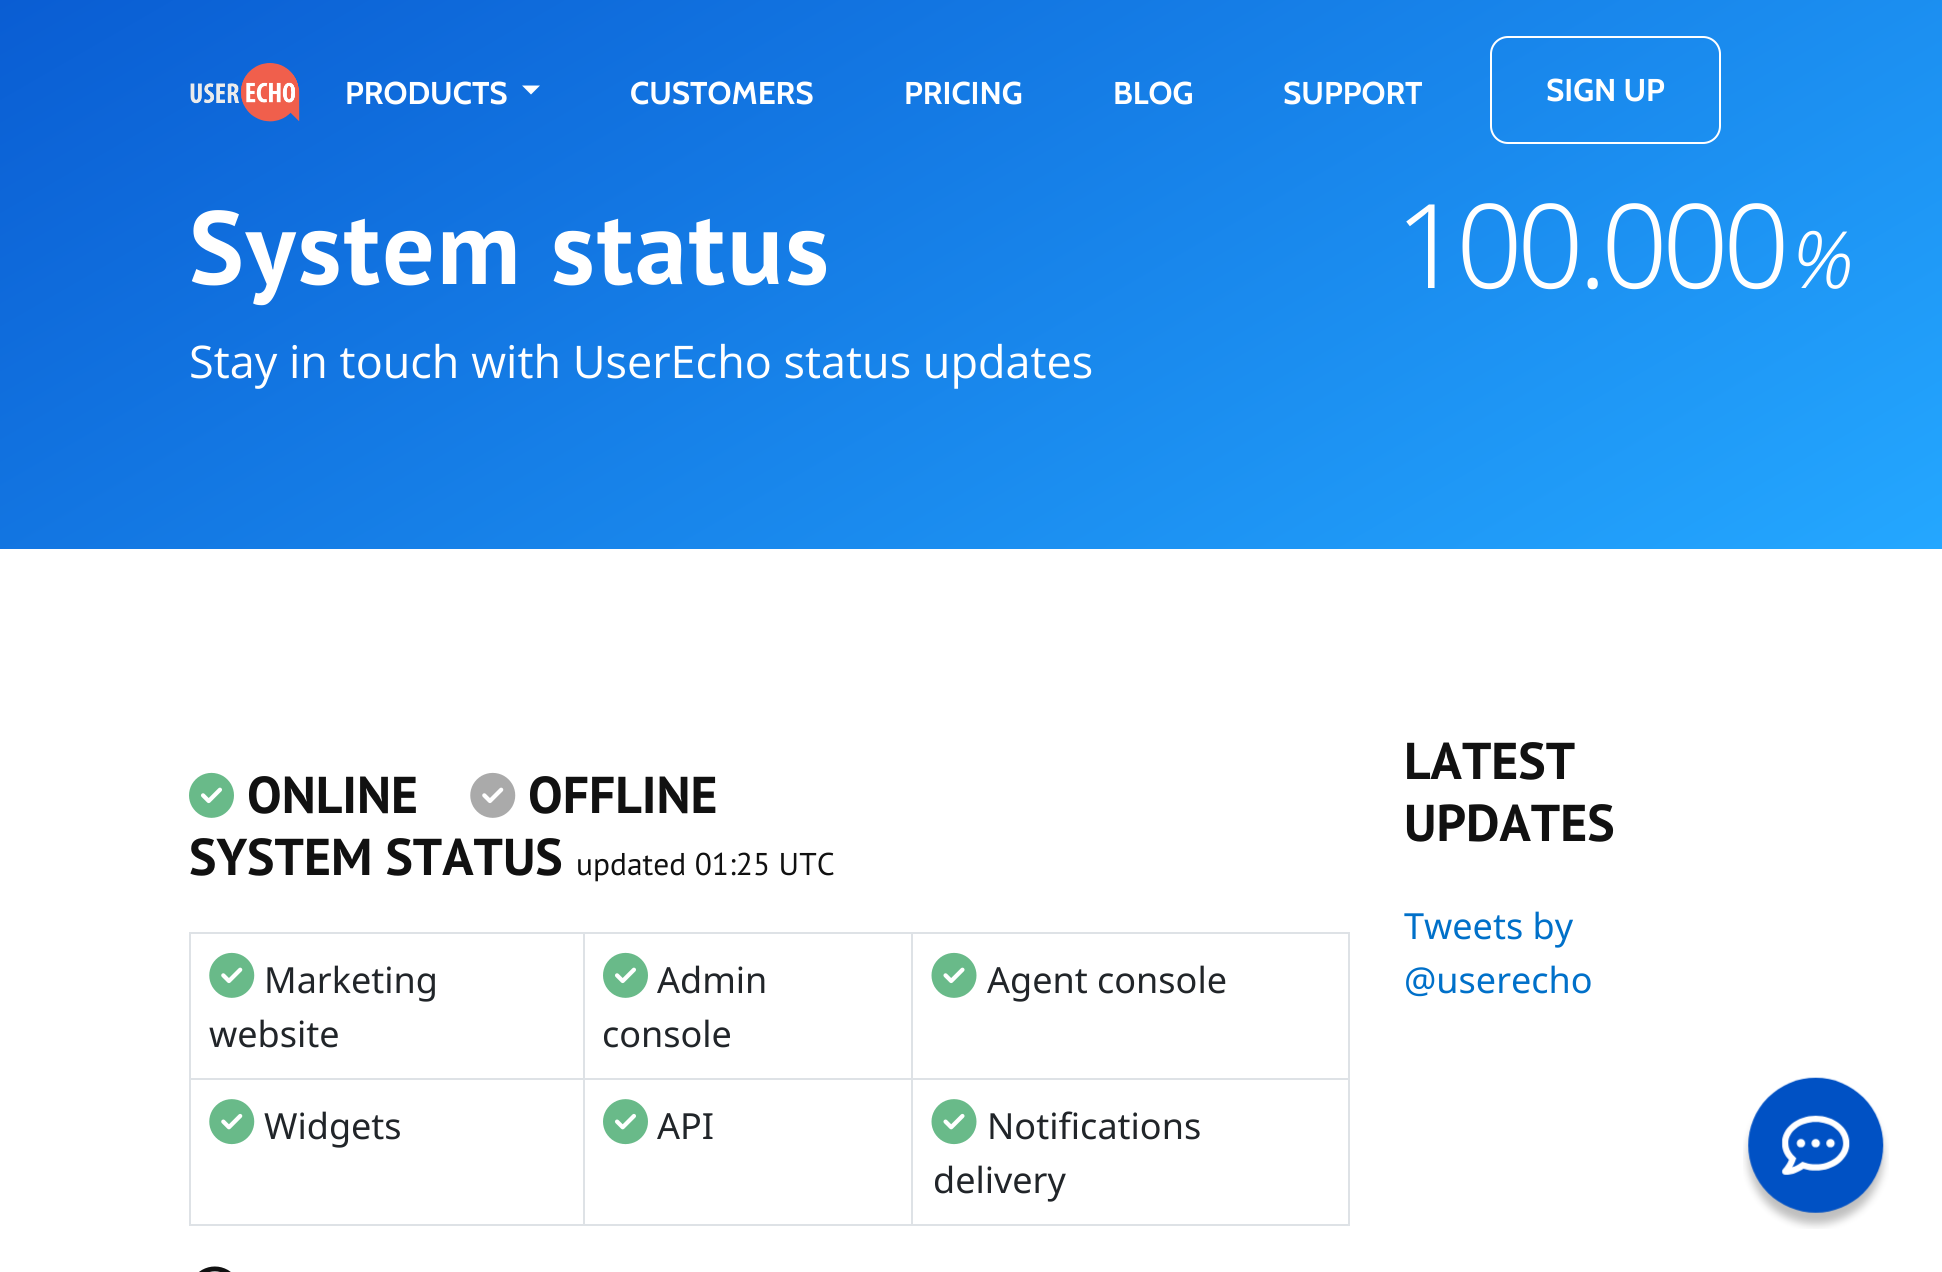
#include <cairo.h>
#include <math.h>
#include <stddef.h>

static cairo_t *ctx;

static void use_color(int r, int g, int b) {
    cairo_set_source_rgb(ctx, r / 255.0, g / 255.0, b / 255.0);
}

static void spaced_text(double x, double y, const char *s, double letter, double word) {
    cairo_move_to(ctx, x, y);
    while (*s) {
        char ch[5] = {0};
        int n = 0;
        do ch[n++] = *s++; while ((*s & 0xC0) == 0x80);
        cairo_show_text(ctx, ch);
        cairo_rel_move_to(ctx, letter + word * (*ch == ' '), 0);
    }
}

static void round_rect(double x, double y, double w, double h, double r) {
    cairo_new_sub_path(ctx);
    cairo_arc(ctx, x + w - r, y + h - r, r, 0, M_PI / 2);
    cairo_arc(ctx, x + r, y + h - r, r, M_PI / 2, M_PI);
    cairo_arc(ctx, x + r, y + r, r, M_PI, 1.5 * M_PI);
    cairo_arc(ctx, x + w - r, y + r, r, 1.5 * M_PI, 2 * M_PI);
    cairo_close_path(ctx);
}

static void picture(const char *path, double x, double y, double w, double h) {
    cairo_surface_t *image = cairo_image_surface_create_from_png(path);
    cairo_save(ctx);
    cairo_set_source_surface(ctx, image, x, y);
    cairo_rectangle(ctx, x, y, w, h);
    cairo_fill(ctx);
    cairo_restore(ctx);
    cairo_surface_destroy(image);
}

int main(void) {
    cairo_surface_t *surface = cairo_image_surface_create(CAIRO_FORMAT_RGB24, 1942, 1272);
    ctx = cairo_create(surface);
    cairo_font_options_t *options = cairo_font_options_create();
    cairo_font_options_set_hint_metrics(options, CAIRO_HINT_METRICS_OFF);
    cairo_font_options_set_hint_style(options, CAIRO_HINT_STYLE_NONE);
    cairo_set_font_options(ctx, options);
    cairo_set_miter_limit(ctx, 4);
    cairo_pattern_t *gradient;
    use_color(255, 255, 255);
    cairo_paint(ctx);
    gradient = cairo_pattern_create_linear(610, -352, 1334, 901);
    cairo_pattern_add_color_stop_rgba(gradient, 0, 0.039, 0.365, 0.827, 1);
    cairo_pattern_add_color_stop_rgba(gradient, 1, 0.141, 0.655, 1, 1);
    cairo_set_source(ctx, gradient);
    cairo_pattern_destroy(gradient);
    cairo_rectangle(ctx, 0, 0, 1942, 549);
    cairo_fill(ctx);
    picture("img1.png", 190, 63, 110, 59);
    cairo_select_font_face(ctx, "Cabin", CAIRO_FONT_SLANT_NORMAL, CAIRO_FONT_WEIGHT_BOLD);
    cairo_set_font_size(ctx, 31.5);
    use_color(255, 255, 255);
    cairo_move_to(ctx, 345, 104);
    cairo_show_text(ctx, "PRODUCTS");
    cairo_new_path(ctx);
    cairo_move_to(ctx, 522, 85.5);
    cairo_line_to(ctx, 540, 85.5);
    cairo_line_to(ctx, 531, 94.5);
    cairo_close_path(ctx);
    cairo_fill(ctx);
    cairo_move_to(ctx, 630, 104);
    cairo_show_text(ctx, "CUSTOMERS");
    cairo_move_to(ctx, 904, 104);
    cairo_show_text(ctx, "PRICING");
    cairo_move_to(ctx, 1113, 104);
    cairo_show_text(ctx, "BLOG");
    cairo_move_to(ctx, 1283, 104);
    cairo_show_text(ctx, "SUPPORT");
    round_rect(1491, 37, 229, 106, 17);
    cairo_stroke(ctx);
    cairo_move_to(ctx, 1546, 101);
    cairo_show_text(ctx, "SIGN UP");
    cairo_select_font_face(ctx, "PT Sans", CAIRO_FONT_SLANT_NORMAL, CAIRO_FONT_WEIGHT_BOLD);
    cairo_set_font_size(ctx, 103.5);
    spaced_text(189, 284, "System status", 2.25, 0);
    cairo_select_font_face(ctx, "Open Sans", CAIRO_FONT_SLANT_NORMAL, CAIRO_FONT_WEIGHT_NORMAL);
    cairo_set_font_size(ctx, 45);
    cairo_move_to(ctx, 189, 378);
    cairo_show_text(ctx, "Stay in touch with UserEcho status updates");
    cairo_select_font_face(ctx, "Noto Sans Light", CAIRO_FONT_SLANT_NORMAL, CAIRO_FONT_WEIGHT_NORMAL);
    cairo_set_font_size(ctx, 117);
    spaced_text(1395, 288, "100.000", -5.75, 0);
    cairo_select_font_face(ctx, "Noto Sans Light", CAIRO_FONT_SLANT_ITALIC, CAIRO_FONT_WEIGHT_NORMAL);
    cairo_set_font_size(ctx, 79);
    spaced_text(1792, 288, "%", -5.75, 0);
    picture("img2.png", 189, 772, 45, 46);
    cairo_select_font_face(ctx, "PT Sans", CAIRO_FONT_SLANT_NORMAL, CAIRO_FONT_WEIGHT_BOLD);
    cairo_set_font_size(ctx, 51.75);
    use_color(17, 17, 17);
    cairo_move_to(ctx, 247, 813);
    cairo_show_text(ctx, "ONLINE");
    picture("img3.png", 470, 772, 46, 46);
    cairo_move_to(ctx, 528, 813);
    cairo_show_text(ctx, "OFFLINE");
    cairo_move_to(ctx, 189, 875);
    cairo_show_text(ctx, "SYSTEM STATUS");
    cairo_select_font_face(ctx, "PT Sans", CAIRO_FONT_SLANT_NORMAL, CAIRO_FONT_WEIGHT_NORMAL);
    cairo_set_font_size(ctx, 31.5);
    cairo_move_to(ctx, 576, 875);
    cairo_show_text(ctx, "updated 01:25 UTC");
    use_color(222, 226, 230);
    cairo_rectangle(ctx, 189, 932, 1161, 2);
    cairo_fill(ctx);
    picture("img4.png", 209, 952, 46, 46);
    cairo_select_font_face(ctx, "Noto Sans", CAIRO_FONT_SLANT_NORMAL, CAIRO_FONT_WEIGHT_NORMAL);
    cairo_set_font_size(ctx, 36);
    use_color(33, 37, 41);
    cairo_move_to(ctx, 264, 993);
    cairo_show_text(ctx, "Marketing");
    cairo_move_to(ctx, 209, 1047);
    cairo_show_text(ctx, "website");
    picture("img2.png", 603, 952, 45, 46);
    cairo_move_to(ctx, 657, 993);
    cairo_show_text(ctx, "Admin");
    cairo_move_to(ctx, 602, 1047);
    cairo_show_text(ctx, "console");
    picture("img5.png", 931, 952, 46, 46);
    cairo_move_to(ctx, 987, 993);
    cairo_show_text(ctx, "Agent console");
    use_color(222, 226, 230);
    cairo_rectangle(ctx, 189, 1078, 1161, 2);
    cairo_fill(ctx);
    cairo_rectangle(ctx, 189, 1224, 1161, 2);
    cairo_fill(ctx);
    cairo_rectangle(ctx, 189, 932, 2, 294);
    cairo_fill(ctx);
    picture("img6.png", 209, 1099, 46, 46);
    use_color(33, 37, 41);
    cairo_move_to(ctx, 264, 1139);
    cairo_show_text(ctx, "Widgets");
    use_color(222, 226, 230);
    cairo_rectangle(ctx, 583, 932, 2, 294);
    cairo_fill(ctx);
    picture("img7.png", 603, 1099, 45, 46);
    use_color(33, 37, 41);
    cairo_move_to(ctx, 657, 1139);
    cairo_show_text(ctx, "API");
    use_color(222, 226, 230);
    cairo_rectangle(ctx, 1348, 932, 2, 294);
    cairo_fill(ctx);
    cairo_rectangle(ctx, 911, 932, 2, 294);
    cairo_fill(ctx);
    picture("img8.png", 931, 1099, 46, 46);
    use_color(33, 37, 41);
    cairo_move_to(ctx, 987, 1139);
    cairo_show_text(ctx, "Notifications");
    cairo_move_to(ctx, 933, 1193);
    cairo_show_text(ctx, "delivery");
    picture("img9.png", 199, 1266, 32, 6);
    cairo_select_font_face(ctx, "PT Sans", CAIRO_FONT_SLANT_NORMAL, CAIRO_FONT_WEIGHT_BOLD);
    cairo_set_font_size(ctx, 51.75);
    use_color(17, 17, 17);
    cairo_move_to(ctx, 1404, 779);
    cairo_show_text(ctx, "LATEST");
    cairo_move_to(ctx, 1404, 841);
    cairo_show_text(ctx, "UPDATES");
    cairo_select_font_face(ctx, "Noto Sans", CAIRO_FONT_SLANT_NORMAL, CAIRO_FONT_WEIGHT_NORMAL);
    cairo_set_font_size(ctx, 36);
    use_color(0, 112, 201);
    cairo_move_to(ctx, 1404, 939);
    cairo_show_text(ctx, "Tweets by");
    cairo_move_to(ctx, 1404, 993);
    cairo_show_text(ctx, "@userecho");
    picture("img10.png", 1743, 1077, 146, 152);
    cairo_surface_write_to_png(surface, "result.png");
    cairo_font_options_destroy(options);
    cairo_destroy(ctx);
    cairo_surface_destroy(surface);
    return 0;
}
